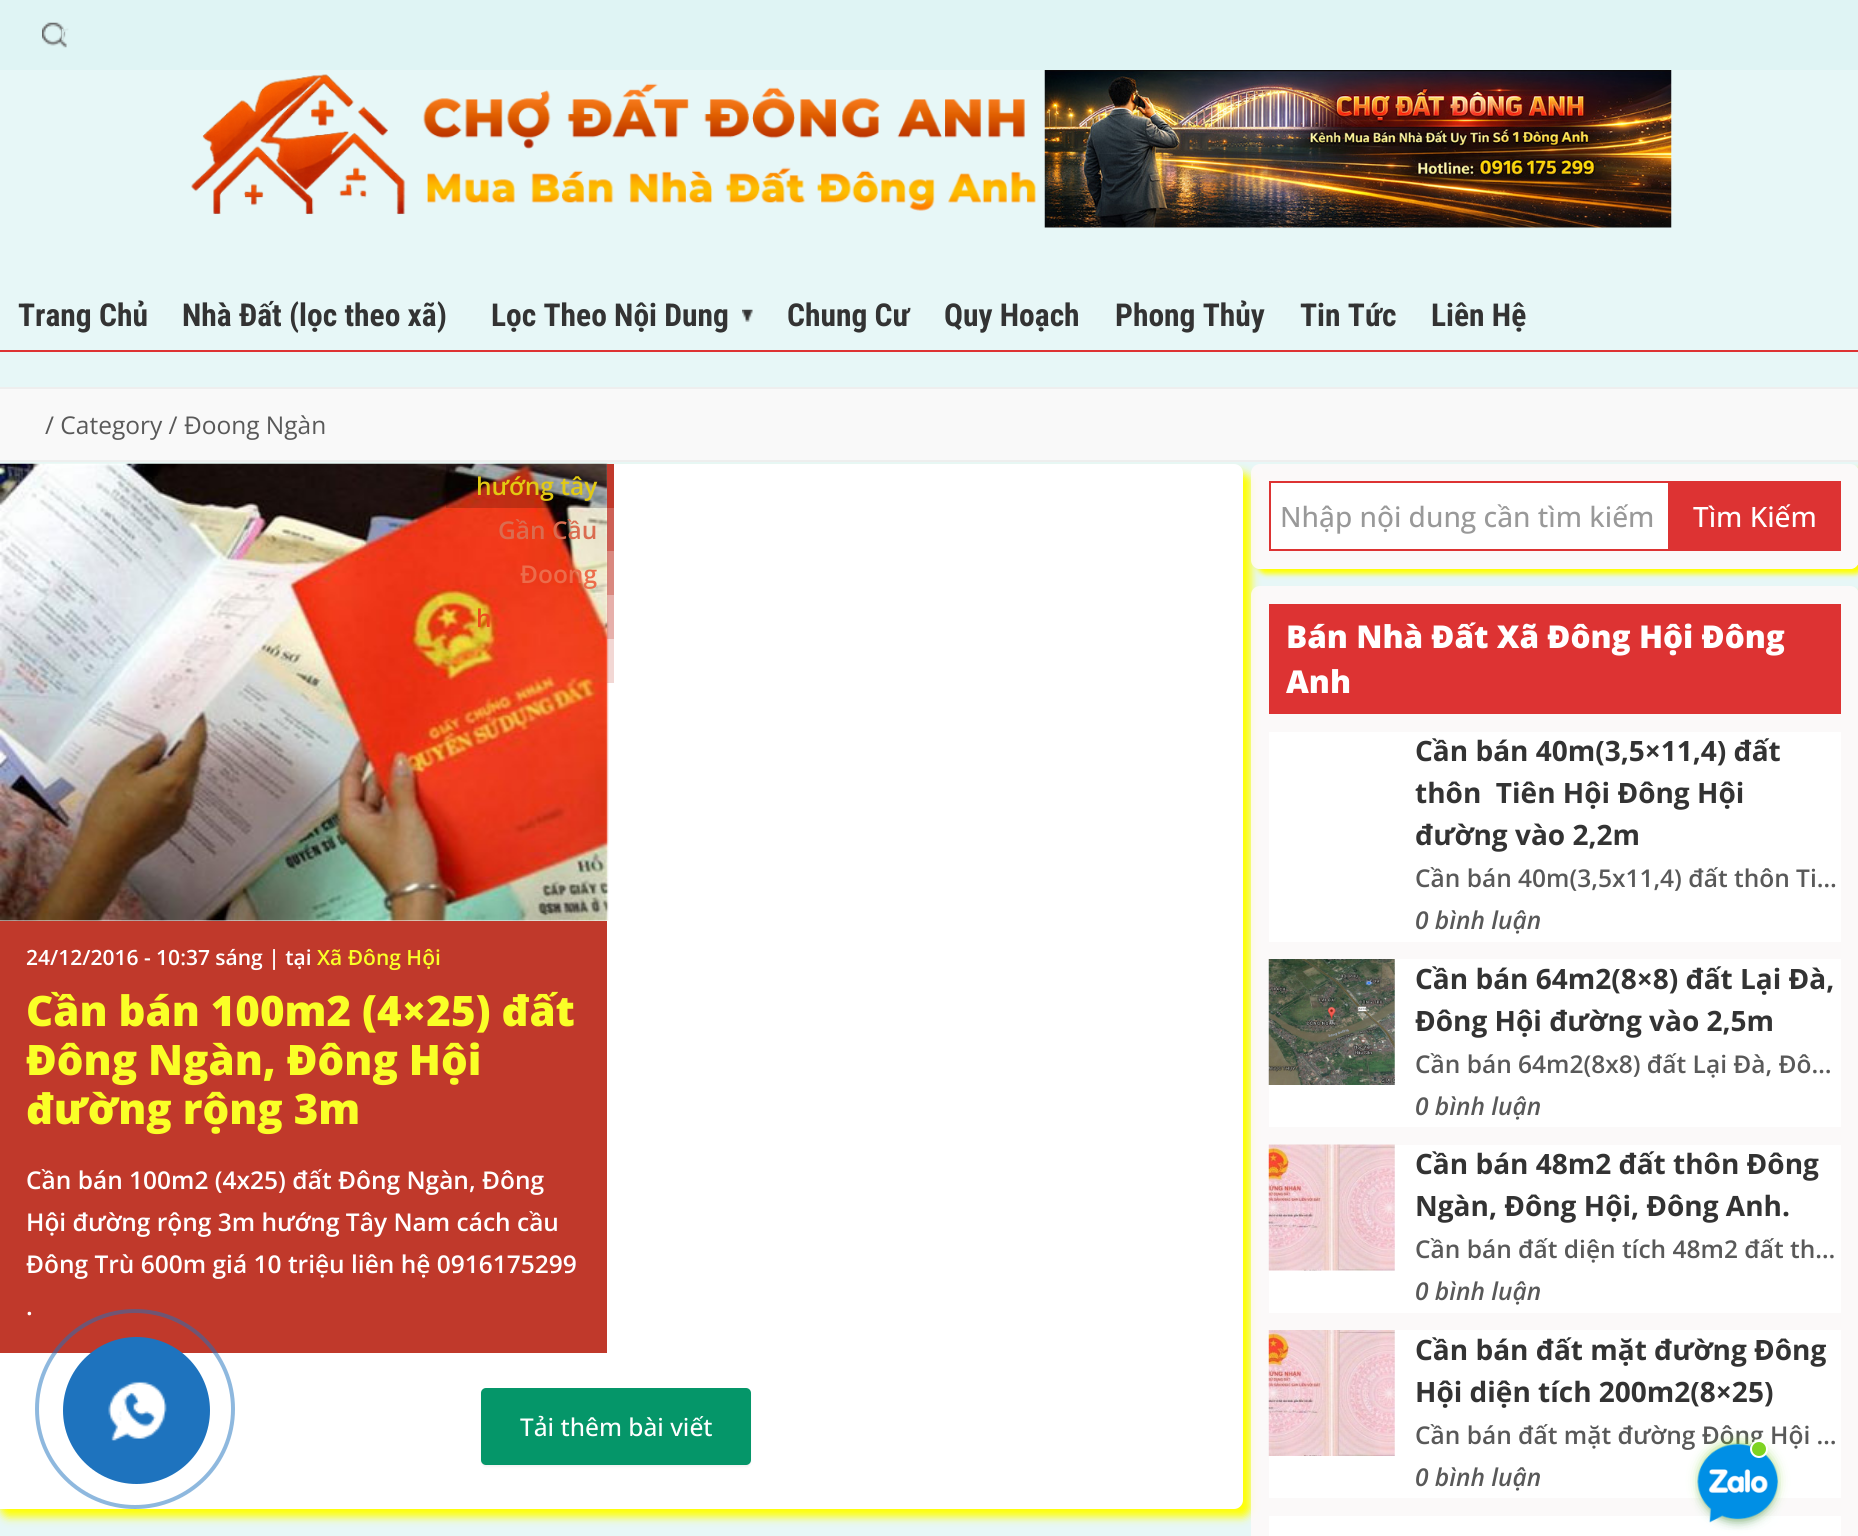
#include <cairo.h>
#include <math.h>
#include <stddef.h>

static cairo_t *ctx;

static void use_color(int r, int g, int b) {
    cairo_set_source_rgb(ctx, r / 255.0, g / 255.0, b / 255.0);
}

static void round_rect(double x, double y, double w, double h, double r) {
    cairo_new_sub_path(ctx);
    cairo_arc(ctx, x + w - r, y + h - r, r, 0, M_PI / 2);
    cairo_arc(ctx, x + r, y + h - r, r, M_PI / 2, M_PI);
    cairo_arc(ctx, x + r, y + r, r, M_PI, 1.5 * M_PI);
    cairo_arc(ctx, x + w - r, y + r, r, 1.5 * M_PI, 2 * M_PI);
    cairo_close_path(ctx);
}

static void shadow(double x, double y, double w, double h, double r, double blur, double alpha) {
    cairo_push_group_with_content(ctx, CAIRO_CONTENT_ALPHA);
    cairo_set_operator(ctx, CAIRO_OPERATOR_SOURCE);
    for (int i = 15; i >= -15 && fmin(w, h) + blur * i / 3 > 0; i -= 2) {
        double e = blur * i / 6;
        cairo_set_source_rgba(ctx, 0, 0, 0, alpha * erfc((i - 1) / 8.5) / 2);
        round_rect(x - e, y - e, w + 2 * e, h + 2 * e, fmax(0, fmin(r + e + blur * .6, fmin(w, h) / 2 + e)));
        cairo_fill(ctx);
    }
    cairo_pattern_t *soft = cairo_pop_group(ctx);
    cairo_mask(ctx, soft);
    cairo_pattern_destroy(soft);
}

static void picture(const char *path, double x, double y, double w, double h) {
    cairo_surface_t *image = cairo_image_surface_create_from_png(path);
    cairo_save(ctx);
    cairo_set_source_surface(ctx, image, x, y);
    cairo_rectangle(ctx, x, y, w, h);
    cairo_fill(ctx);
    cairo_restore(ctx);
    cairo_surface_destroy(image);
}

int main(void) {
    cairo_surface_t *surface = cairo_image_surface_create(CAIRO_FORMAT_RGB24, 1858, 1536);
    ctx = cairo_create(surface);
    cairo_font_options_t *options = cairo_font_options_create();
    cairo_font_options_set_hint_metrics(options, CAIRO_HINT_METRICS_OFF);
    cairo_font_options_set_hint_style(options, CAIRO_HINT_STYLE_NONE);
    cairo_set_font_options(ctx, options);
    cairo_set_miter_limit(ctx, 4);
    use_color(231, 247, 247);
    cairo_paint(ctx);
    use_color(223, 244, 244);
    cairo_rectangle(ctx, 0, 0, 1858, 70);
    cairo_fill(ctx);
    picture("img1.png", 42, 22, 25, 26);
    cairo_select_font_face(ctx, "Open Sans Medium", CAIRO_FONT_SLANT_NORMAL, CAIRO_FONT_WEIGHT_NORMAL);
    cairo_set_font_size(ctx, 21);
    use_color(212, 231, 231);
    cairo_move_to(ctx, 60, 40);
    cairo_show_text(ctx, "r");
    picture("img2.png", 191, 74, 845, 141);
    picture("img3.png", 1044, 70, 628, 158);
    use_color(221, 51, 51);
    cairo_rectangle(ctx, 0, 350, 1858, 2);
    cairo_fill(ctx);
    cairo_select_font_face(ctx, "Roboto Condensed", CAIRO_FONT_SLANT_NORMAL, CAIRO_FONT_WEIGHT_BOLD);
    cairo_set_font_size(ctx, 31.5);
    use_color(51, 51, 51);
    cairo_move_to(ctx, 18, 326);
    cairo_show_text(ctx, "Trang Chủ");
    cairo_move_to(ctx, 182, 326);
    cairo_show_text(ctx, "Nhà Đất (lọc theo xã)");
    cairo_move_to(ctx, 491, 326);
    cairo_show_text(ctx, "Lọc Theo Nội Dung");
    picture("img4.png", 742, 309, 11, 13);
    cairo_move_to(ctx, 787, 326);
    cairo_show_text(ctx, "Chung Cư");
    cairo_move_to(ctx, 944, 326);
    cairo_show_text(ctx, "Quy Hoạch");
    cairo_move_to(ctx, 1115, 326);
    cairo_show_text(ctx, "Phong Thủy");
    cairo_move_to(ctx, 1300, 326);
    cairo_show_text(ctx, "Tin Tức");
    cairo_move_to(ctx, 1431, 326);
    cairo_show_text(ctx, "Liên Hệ");
    use_color(249, 249, 249);
    cairo_rectangle(ctx, -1, 388, 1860, 73);
    cairo_fill_preserve(ctx);
    use_color(238, 238, 238);
    cairo_stroke(ctx);
    cairo_select_font_face(ctx, "Open Sans", CAIRO_FONT_SLANT_NORMAL, CAIRO_FONT_WEIGHT_NORMAL);
    cairo_set_font_size(ctx, 24.5);
    use_color(89, 89, 89);
    cairo_move_to(ctx, 45, 434);
    cairo_show_text(ctx, "/ Category / Đoong Ngàn");
    use_color(255, 255, 0);
    shadow(0, 473, 1251, 1044, 9, 4.5, 1);
    use_color(255, 255, 255);
    cairo_new_path(ctx);
    cairo_move_to(ctx, 0, 464);
    cairo_line_to(ctx, 1234, 464);
    cairo_curve_to(ctx, 1239, 464, 1243, 468, 1243, 473);
    cairo_line_to(ctx, 1243, 1500);
    cairo_curve_to(ctx, 1243, 1505, 1239, 1509, 1234, 1509);
    cairo_line_to(ctx, 0, 1509);
    cairo_close_path(ctx);
    cairo_fill(ctx);
    picture("img5.png", 0, 463, 609, 458);
    cairo_set_source_rgba(ctx, 0, 0, 0, 0.2);
    cairo_rectangle(ctx, 446, 464, 161, 44);
    cairo_fill(ctx);
    cairo_select_font_face(ctx, "Open Sans SemiBold", CAIRO_FONT_SLANT_NORMAL, CAIRO_FONT_WEIGHT_NORMAL);
    use_color(226, 201, 19);
    cairo_move_to(ctx, 476, 495);
    cairo_show_text(ctx, "hướng tây");
    use_color(192, 57, 43);
    cairo_rectangle(ctx, 607, 464, 7, 44);
    cairo_fill(ctx);
    use_color(218, 108, 80);
    cairo_move_to(ctx, 498, 539);
    cairo_show_text(ctx, "Gần Cầu");
    cairo_set_source_rgba(ctx, 0.753, 0.224, 0.169, 0.8);
    cairo_rectangle(ctx, 607, 508, 7, 43);
    cairo_fill(ctx);
    use_color(236, 108, 75);
    cairo_move_to(ctx, 520, 583);
    cairo_show_text(ctx, "Đoong");
    cairo_set_source_rgba(ctx, 0.753, 0.224, 0.169, 0.6);
    cairo_rectangle(ctx, 607, 551, 7, 44);
    cairo_fill(ctx);
    use_color(239, 74, 30);
    cairo_move_to(ctx, 476, 627);
    cairo_show_text(ctx, "h");
    cairo_set_source_rgba(ctx, 0.753, 0.224, 0.169, 0.4);
    cairo_rectangle(ctx, 607, 595, 7, 44);
    cairo_fill(ctx);
    cairo_set_source_rgba(ctx, 0.753, 0.224, 0.169, 0.2);
    cairo_rectangle(ctx, 607, 639, 7, 44);
    cairo_fill(ctx);
    use_color(192, 57, 43);
    cairo_rectangle(ctx, 0, 921, 607, 432);
    cairo_fill(ctx);
    cairo_set_font_size(ctx, 21);
    use_color(255, 255, 255);
    cairo_move_to(ctx, 26, 965);
    cairo_show_text(ctx, "24/12/2016 - 10:37 sáng | tại");
    use_color(250, 255, 39);
    cairo_move_to(ctx, 317, 965);
    cairo_show_text(ctx, "Xã Đông Hội");
    cairo_select_font_face(ctx, "Open Sans ExtraBold", CAIRO_FONT_SLANT_NORMAL, CAIRO_FONT_WEIGHT_NORMAL);
    cairo_set_font_size(ctx, 42);
    cairo_move_to(ctx, 26, 1026);
    cairo_show_text(ctx, "Cần bán 100m2 (4×25) đất");
    cairo_move_to(ctx, 26, 1075);
    cairo_show_text(ctx, "Đông Ngàn, Đông Hội");
    cairo_move_to(ctx, 26, 1124);
    cairo_show_text(ctx, "đường rộng 3m");
    cairo_select_font_face(ctx, "Open Sans SemiBold", CAIRO_FONT_SLANT_NORMAL, CAIRO_FONT_WEIGHT_NORMAL);
    cairo_set_font_size(ctx, 24.5);
    use_color(255, 255, 255);
    cairo_move_to(ctx, 26, 1189);
    cairo_show_text(ctx, "Cần bán 100m2 (4x25) đất Đông Ngàn, Đông");
    cairo_move_to(ctx, 26, 1231);
    cairo_show_text(ctx, "Hội đường rộng 3m hướng Tây Nam cách cầu");
    cairo_move_to(ctx, 26, 1273);
    cairo_show_text(ctx, "Đông Trù 600m giá 10 triệu liên hệ 0916175299");
    cairo_move_to(ctx, 26, 1315);
    cairo_show_text(ctx, ".");
    use_color(0, 0, 0);
    shadow(481, 1390, 270, 77, 5, 1, 0.05);
    use_color(5, 150, 105);
    round_rect(481, 1388, 270, 77, 5);
    cairo_fill(ctx);
    cairo_select_font_face(ctx, "Open Sans Medium", CAIRO_FONT_SLANT_NORMAL, CAIRO_FONT_WEIGHT_NORMAL);
    use_color(255, 255, 255);
    cairo_move_to(ctx, 520, 1436);
    cairo_show_text(ctx, "Tải thêm bài viết");
    cairo_save(ctx);
    cairo_set_fill_rule(ctx, CAIRO_FILL_RULE_EVEN_ODD);
    cairo_new_path(ctx);
    cairo_move_to(ctx, 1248, 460);
    cairo_line_to(ctx, 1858, 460);
    cairo_line_to(ctx, 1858, 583);
    cairo_line_to(ctx, 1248, 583);
    cairo_close_path(ctx);
    cairo_move_to(ctx, 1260, 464);
    cairo_line_to(ctx, 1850, 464);
    cairo_curve_to(ctx, 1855, 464, 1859, 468, 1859, 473);
    cairo_line_to(ctx, 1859, 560);
    cairo_curve_to(ctx, 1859, 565, 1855, 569, 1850, 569);
    cairo_line_to(ctx, 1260, 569);
    cairo_curve_to(ctx, 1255, 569, 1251, 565, 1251, 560);
    cairo_line_to(ctx, 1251, 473);
    cairo_curve_to(ctx, 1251, 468, 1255, 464, 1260, 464);
    cairo_close_path(ctx);
    cairo_clip(ctx);
    use_color(255, 255, 0);
    shadow(1257, 469, 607, 105, 9, 2.5, 1);
    cairo_restore(ctx);
    cairo_set_source_rgba(ctx, 1, 0.976, 0.976, 0.85);
    round_rect(1251, 464, 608, 105, 9);
    cairo_fill(ctx);
    use_color(255, 255, 255);
    cairo_rectangle(ctx, 1270, 482, 399, 68);
    cairo_fill_preserve(ctx);
    use_color(221, 51, 51);
    cairo_stroke(ctx);
    cairo_set_font_size(ctx, 28);
    use_color(153, 153, 153);
    cairo_move_to(ctx, 1280, 527);
    cairo_show_text(ctx, "Nhập nội dung cần tìm kiếm");
    use_color(221, 51, 51);
    cairo_rectangle(ctx, 1670, 481, 171, 70);
    cairo_fill(ctx);
    use_color(255, 255, 255);
    cairo_move_to(ctx, 1693, 527);
    cairo_show_text(ctx, "Tìm Kiếm");
    cairo_save(ctx);
    cairo_set_fill_rule(ctx, CAIRO_FILL_RULE_EVEN_ODD);
    cairo_new_path(ctx);
    cairo_move_to(ctx, 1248, 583);
    cairo_line_to(ctx, 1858, 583);
    cairo_line_to(ctx, 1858, 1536);
    cairo_line_to(ctx, 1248, 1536);
    cairo_close_path(ctx);
    cairo_move_to(ctx, 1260, 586);
    cairo_line_to(ctx, 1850, 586);
    cairo_curve_to(ctx, 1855, 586, 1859, 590, 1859, 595);
    cairo_line_to(ctx, 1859, 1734);
    cairo_curve_to(ctx, 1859, 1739, 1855, 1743, 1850, 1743);
    cairo_line_to(ctx, 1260, 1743);
    cairo_curve_to(ctx, 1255, 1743, 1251, 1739, 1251, 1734);
    cairo_line_to(ctx, 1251, 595);
    cairo_curve_to(ctx, 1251, 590, 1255, 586, 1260, 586);
    cairo_close_path(ctx);
    cairo_clip(ctx);
    use_color(255, 255, 0);
    shadow(1257, 592, 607, 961, 9, 2.5, 1);
    cairo_restore(ctx);
    cairo_set_source_rgba(ctx, 1, 0.976, 0.976, 0.85);
    round_rect(1251, 586, 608, 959, 9);
    cairo_fill(ctx);
    use_color(221, 51, 51);
    cairo_rectangle(ctx, 1269, 604, 572, 110);
    cairo_fill(ctx);
    cairo_select_font_face(ctx, "Open Sans ExtraBold", CAIRO_FONT_SLANT_NORMAL, CAIRO_FONT_WEIGHT_NORMAL);
    cairo_set_font_size(ctx, 31.5);
    use_color(255, 255, 255);
    cairo_move_to(ctx, 1286, 648);
    cairo_show_text(ctx, "Bán Nhà Đất Xã Đông Hội Đông");
    cairo_move_to(ctx, 1286, 693);
    cairo_show_text(ctx, "Anh");
    cairo_rectangle(ctx, 1269, 732, 572, 210);
    cairo_fill(ctx);
    cairo_select_font_face(ctx, "Open Sans", CAIRO_FONT_SLANT_NORMAL, CAIRO_FONT_WEIGHT_BOLD);
    cairo_set_font_size(ctx, 28);
    use_color(51, 51, 51);
    cairo_move_to(ctx, 1415, 761);
    cairo_show_text(ctx, "Cần bán 40m(3,5×11,4) đất");
    cairo_move_to(ctx, 1415, 803);
    cairo_show_text(ctx, "thôn  Tiên Hội Đông Hội");
    cairo_move_to(ctx, 1415, 845);
    cairo_show_text(ctx, "đường vào 2,2m");
    cairo_select_font_face(ctx, "Open Sans SemiBold", CAIRO_FONT_SLANT_NORMAL, CAIRO_FONT_WEIGHT_NORMAL);
    cairo_set_font_size(ctx, 24.5);
    use_color(89, 89, 89);
    cairo_move_to(ctx, 1415, 887);
    cairo_show_text(ctx, "Cần bán 40m(3,5x11,4) đất thôn Ti…");
    cairo_select_font_face(ctx, "Open Sans SemiBold", CAIRO_FONT_SLANT_ITALIC, CAIRO_FONT_WEIGHT_NORMAL);
    cairo_move_to(ctx, 1415, 929);
    cairo_show_text(ctx, "0 bình luận");
    use_color(255, 255, 255);
    cairo_rectangle(ctx, 1269, 959, 572, 168);
    cairo_fill(ctx);
    picture("img6.png", 1268, 959, 127, 126);
    cairo_select_font_face(ctx, "Open Sans", CAIRO_FONT_SLANT_NORMAL, CAIRO_FONT_WEIGHT_BOLD);
    cairo_set_font_size(ctx, 28);
    use_color(51, 51, 51);
    cairo_move_to(ctx, 1415, 989);
    cairo_show_text(ctx, "Cần bán 64m2(8×8) đất Lại Đà,");
    cairo_move_to(ctx, 1415, 1031);
    cairo_show_text(ctx, "Đông Hội đường vào 2,5m");
    cairo_select_font_face(ctx, "Open Sans SemiBold", CAIRO_FONT_SLANT_NORMAL, CAIRO_FONT_WEIGHT_NORMAL);
    cairo_set_font_size(ctx, 24.5);
    use_color(89, 89, 89);
    cairo_move_to(ctx, 1415, 1073);
    cairo_show_text(ctx, "Cần bán 64m2(8x8) đất Lại Đà, Đô…");
    cairo_select_font_face(ctx, "Open Sans SemiBold", CAIRO_FONT_SLANT_ITALIC, CAIRO_FONT_WEIGHT_NORMAL);
    cairo_move_to(ctx, 1415, 1115);
    cairo_show_text(ctx, "0 bình luận");
    use_color(255, 255, 255);
    cairo_rectangle(ctx, 1269, 1145, 572, 168);
    cairo_fill(ctx);
    picture("img7.png", 1268, 1144, 127, 127);
    cairo_select_font_face(ctx, "Open Sans", CAIRO_FONT_SLANT_NORMAL, CAIRO_FONT_WEIGHT_BOLD);
    cairo_set_font_size(ctx, 28);
    use_color(51, 51, 51);
    cairo_move_to(ctx, 1415, 1174);
    cairo_show_text(ctx, "Cần bán 48m2 đất thôn Đông");
    cairo_move_to(ctx, 1415, 1216);
    cairo_show_text(ctx, "Ngàn, Đông Hội, Đông Anh.");
    cairo_select_font_face(ctx, "Open Sans SemiBold", CAIRO_FONT_SLANT_NORMAL, CAIRO_FONT_WEIGHT_NORMAL);
    cairo_set_font_size(ctx, 24.5);
    use_color(89, 89, 89);
    cairo_move_to(ctx, 1415, 1258);
    cairo_show_text(ctx, "Cần bán đất diện tích 48m2 đất th…");
    cairo_select_font_face(ctx, "Open Sans SemiBold", CAIRO_FONT_SLANT_ITALIC, CAIRO_FONT_WEIGHT_NORMAL);
    cairo_move_to(ctx, 1415, 1300);
    cairo_show_text(ctx, "0 bình luận");
    use_color(255, 255, 255);
    cairo_rectangle(ctx, 1269, 1330, 572, 168);
    cairo_fill(ctx);
    picture("img8.png", 1268, 1330, 127, 126);
    cairo_select_font_face(ctx, "Open Sans", CAIRO_FONT_SLANT_NORMAL, CAIRO_FONT_WEIGHT_BOLD);
    cairo_set_font_size(ctx, 28);
    use_color(51, 51, 51);
    cairo_move_to(ctx, 1415, 1360);
    cairo_show_text(ctx, "Cần bán đất mặt đường Đông");
    cairo_move_to(ctx, 1415, 1402);
    cairo_show_text(ctx, "Hội diện tích 200m2(8×25)");
    cairo_select_font_face(ctx, "Open Sans SemiBold", CAIRO_FONT_SLANT_NORMAL, CAIRO_FONT_WEIGHT_NORMAL);
    cairo_set_font_size(ctx, 24.5);
    use_color(89, 89, 89);
    cairo_move_to(ctx, 1415, 1444);
    cairo_show_text(ctx, "Cần bán đất mặt đường Đông Hội …");
    cairo_select_font_face(ctx, "Open Sans SemiBold", CAIRO_FONT_SLANT_ITALIC, CAIRO_FONT_WEIGHT_NORMAL);
    cairo_move_to(ctx, 1415, 1486);
    cairo_show_text(ctx, "0 bình luận");
    use_color(255, 255, 255);
    cairo_rectangle(ctx, 1269, 1516, 572, 20);
    cairo_fill(ctx);
    cairo_arc(ctx, 135, 1409, 98, 0, 2 * M_PI);
    cairo_set_source_rgba(ctx, 0.118, 0.451, 0.745, 0.5);
    cairo_set_line_width(ctx, 4);
    cairo_stroke(ctx);
    use_color(30, 115, 190);
    cairo_arc(ctx, 136.5, 1410.5, 73.5, 0, 2 * M_PI);
    cairo_fill(ctx);
    picture("img9.png", 108, 1381, 59, 60);
    use_color(126, 211, 33);
    shadow(1703, 1446, 70, 70, 35, 7, 1);
    picture("img10.png", 1695, 1443, 86, 87);
    use_color(126, 211, 33);
    cairo_arc(ctx, 1759, 1449, 8, 0, 2 * M_PI);
    cairo_fill_preserve(ctx);
    use_color(255, 255, 255);
    cairo_set_line_width(ctx, 2);
    cairo_stroke(ctx);
    cairo_surface_write_to_png(surface, "result.png");
    cairo_font_options_destroy(options);
    cairo_destroy(ctx);
    cairo_surface_destroy(surface);
    return 0;
}
